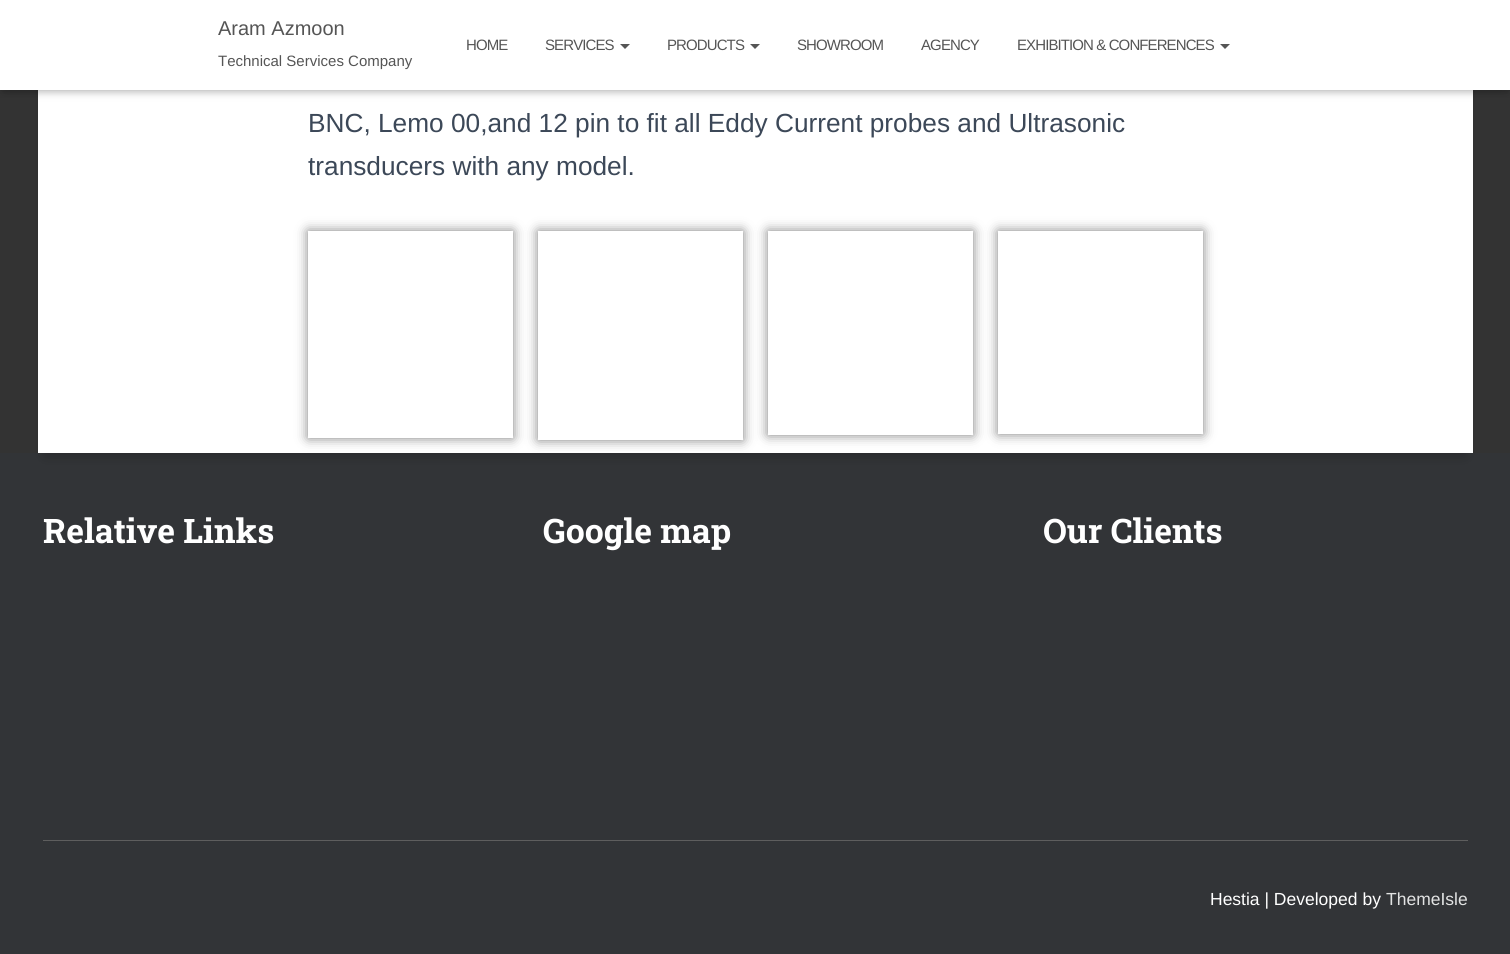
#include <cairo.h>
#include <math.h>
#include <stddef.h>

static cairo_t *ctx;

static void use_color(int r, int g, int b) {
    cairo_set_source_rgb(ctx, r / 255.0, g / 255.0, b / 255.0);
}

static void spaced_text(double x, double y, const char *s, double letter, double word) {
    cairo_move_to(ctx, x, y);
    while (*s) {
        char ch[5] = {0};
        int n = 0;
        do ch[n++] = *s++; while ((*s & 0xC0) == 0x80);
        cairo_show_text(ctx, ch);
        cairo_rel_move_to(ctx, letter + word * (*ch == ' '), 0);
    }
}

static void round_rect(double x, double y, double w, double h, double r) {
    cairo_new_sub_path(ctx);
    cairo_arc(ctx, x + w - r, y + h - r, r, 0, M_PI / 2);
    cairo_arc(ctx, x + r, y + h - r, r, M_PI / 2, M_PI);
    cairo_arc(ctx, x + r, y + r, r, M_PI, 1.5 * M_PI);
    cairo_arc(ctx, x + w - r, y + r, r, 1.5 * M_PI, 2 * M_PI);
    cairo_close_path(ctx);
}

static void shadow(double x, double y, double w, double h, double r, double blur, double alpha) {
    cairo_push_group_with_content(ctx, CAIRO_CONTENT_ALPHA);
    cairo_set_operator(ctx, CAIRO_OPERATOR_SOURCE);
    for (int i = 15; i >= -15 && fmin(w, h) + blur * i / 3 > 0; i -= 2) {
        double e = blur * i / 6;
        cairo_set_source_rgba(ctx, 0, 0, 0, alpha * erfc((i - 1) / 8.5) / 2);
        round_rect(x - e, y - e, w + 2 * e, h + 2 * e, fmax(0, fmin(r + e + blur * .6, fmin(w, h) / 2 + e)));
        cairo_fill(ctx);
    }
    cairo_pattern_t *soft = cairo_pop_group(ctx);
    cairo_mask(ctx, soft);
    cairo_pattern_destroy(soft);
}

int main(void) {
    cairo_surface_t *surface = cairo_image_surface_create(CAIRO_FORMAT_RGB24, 1510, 954);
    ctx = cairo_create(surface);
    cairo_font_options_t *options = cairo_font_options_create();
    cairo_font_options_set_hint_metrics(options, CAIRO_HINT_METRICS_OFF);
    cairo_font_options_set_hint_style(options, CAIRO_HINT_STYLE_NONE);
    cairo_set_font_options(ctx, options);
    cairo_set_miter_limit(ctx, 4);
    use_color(51, 51, 51);
    cairo_paint(ctx);
    use_color(50, 52, 55);
    cairo_rectangle(ctx, 0, 453, 1510, 501);
    cairo_fill(ctx);
    use_color(0, 0, 0);
    shadow(44, -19, 1422, 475, 1, 6, 0.2);
    use_color(255, 255, 255);
    cairo_rectangle(ctx, 38, 90, 1435, 363);
    cairo_fill(ctx);
    use_color(0, 0, 0);
    shadow(3, 8, 1505, 85, 0, 3, 0.1);
    shadow(0, 1, 1510, 90, 0, 6, 0.12);
    shadow(8, 9, 1495, 75, 0, 6, 0.42);
    use_color(255, 255, 255);
    cairo_rectangle(ctx, 0, 0, 1510, 90);
    cairo_fill(ctx);
    cairo_select_font_face(ctx, "Liberation Sans", CAIRO_FONT_SLANT_NORMAL, CAIRO_FONT_WEIGHT_NORMAL);
    cairo_set_font_size(ctx, 20);
    use_color(85, 85, 85);
    cairo_move_to(ctx, 218, 35);
    cairo_show_text(ctx, "Aram Azmoon");
    cairo_set_font_size(ctx, 15);
    cairo_move_to(ctx, 218, 66);
    cairo_show_text(ctx, "Technical Services Company");
    spaced_text(466, 50, "HOME", -0.9, 0);
    spaced_text(545, 50, "SERVICES", -0.9, 0);
    cairo_new_path(ctx);
    cairo_move_to(ctx, 620, 44);
    cairo_line_to(ctx, 630, 44);
    cairo_line_to(ctx, 625, 49);
    cairo_close_path(ctx);
    cairo_fill(ctx);
    spaced_text(667, 50, "PRODUCTS", -0.9, 0);
    cairo_new_path(ctx);
    cairo_move_to(ctx, 750, 44);
    cairo_line_to(ctx, 760, 44);
    cairo_line_to(ctx, 755, 49);
    cairo_close_path(ctx);
    cairo_fill(ctx);
    spaced_text(797, 50, "SHOWROOM", -0.9, 0);
    spaced_text(921, 50, "AGENCY", -0.9, 0);
    spaced_text(1017, 50, "EXHIBITION & CONFERENCES", -0.9, 0);
    cairo_new_path(ctx);
    cairo_move_to(ctx, 1220, 44);
    cairo_line_to(ctx, 1230, 44);
    cairo_line_to(ctx, 1225, 49);
    cairo_close_path(ctx);
    cairo_fill(ctx);
    cairo_set_font_size(ctx, 26.25);
    use_color(60, 72, 88);
    cairo_move_to(ctx, 308, 132);
    cairo_show_text(ctx, "BNC, Lemo 00,and 12 pin to fit all Eddy Current probes and Ultrasonic");
    cairo_move_to(ctx, 308, 175);
    cairo_show_text(ctx, "transducers with any model.");
    cairo_save(ctx);
    cairo_set_fill_rule(ctx, CAIRO_FILL_RULE_EVEN_ODD);
    cairo_new_path(ctx);
    cairo_move_to(ctx, 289, 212);
    cairo_line_to(ctx, 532, 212);
    cairo_line_to(ctx, 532, 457);
    cairo_line_to(ctx, 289, 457);
    cairo_close_path(ctx);
    cairo_move_to(ctx, 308, 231);
    cairo_line_to(ctx, 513, 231);
    cairo_line_to(ctx, 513, 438);
    cairo_line_to(ctx, 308, 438);
    cairo_close_path(ctx);
    cairo_clip(ctx);
    use_color(0, 0, 0);
    shadow(308, 231, 205, 207, 0, 6, 0.5);
    cairo_restore(ctx);
    cairo_save(ctx);
    cairo_set_fill_rule(ctx, CAIRO_FILL_RULE_EVEN_ODD);
    cairo_new_path(ctx);
    cairo_move_to(ctx, 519, 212);
    cairo_line_to(ctx, 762, 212);
    cairo_line_to(ctx, 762, 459);
    cairo_line_to(ctx, 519, 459);
    cairo_close_path(ctx);
    cairo_move_to(ctx, 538, 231);
    cairo_line_to(ctx, 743, 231);
    cairo_line_to(ctx, 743, 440);
    cairo_line_to(ctx, 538, 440);
    cairo_close_path(ctx);
    cairo_clip(ctx);
    use_color(0, 0, 0);
    shadow(538, 231, 205, 209, 0, 6, 0.5);
    cairo_restore(ctx);
    cairo_save(ctx);
    cairo_set_fill_rule(ctx, CAIRO_FILL_RULE_EVEN_ODD);
    cairo_new_path(ctx);
    cairo_move_to(ctx, 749, 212);
    cairo_line_to(ctx, 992, 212);
    cairo_line_to(ctx, 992, 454);
    cairo_line_to(ctx, 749, 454);
    cairo_close_path(ctx);
    cairo_move_to(ctx, 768, 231);
    cairo_line_to(ctx, 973, 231);
    cairo_line_to(ctx, 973, 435);
    cairo_line_to(ctx, 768, 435);
    cairo_close_path(ctx);
    cairo_clip(ctx);
    use_color(0, 0, 0);
    shadow(768, 231, 205, 204, 0, 6, 0.5);
    cairo_restore(ctx);
    cairo_save(ctx);
    cairo_set_fill_rule(ctx, CAIRO_FILL_RULE_EVEN_ODD);
    cairo_new_path(ctx);
    cairo_move_to(ctx, 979, 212);
    cairo_line_to(ctx, 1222, 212);
    cairo_line_to(ctx, 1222, 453);
    cairo_line_to(ctx, 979, 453);
    cairo_close_path(ctx);
    cairo_move_to(ctx, 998, 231);
    cairo_line_to(ctx, 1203, 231);
    cairo_line_to(ctx, 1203, 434);
    cairo_line_to(ctx, 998, 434);
    cairo_close_path(ctx);
    cairo_clip(ctx);
    use_color(0, 0, 0);
    shadow(998, 231, 205, 203, 0, 6, 0.5);
    cairo_restore(ctx);
    cairo_select_font_face(ctx, "Roboto Slab", CAIRO_FONT_SLANT_NORMAL, CAIRO_FONT_WEIGHT_BOLD);
    cairo_set_font_size(ctx, 33.75);
    use_color(255, 255, 255);
    cairo_move_to(ctx, 43, 543);
    cairo_show_text(ctx, "Relative Links");
    cairo_move_to(ctx, 543, 543);
    cairo_show_text(ctx, "Google map");
    cairo_move_to(ctx, 1043, 543);
    cairo_show_text(ctx, "Our Clients");
    use_color(94, 94, 94);
    cairo_rectangle(ctx, 43, 840, 1425, 1);
    cairo_fill(ctx);
    cairo_select_font_face(ctx, "Liberation Sans", CAIRO_FONT_SLANT_NORMAL, CAIRO_FONT_WEIGHT_NORMAL);
    cairo_set_font_size(ctx, 17.5);
    use_color(255, 255, 255);
    cairo_move_to(ctx, 1210, 905);
    cairo_show_text(ctx, "Hestia | Developed by");
    use_color(226, 227, 227);
    cairo_move_to(ctx, 1386, 905);
    cairo_show_text(ctx, "ThemeIsle");
    cairo_surface_write_to_png(surface, "result.png");
    cairo_font_options_destroy(options);
    cairo_destroy(ctx);
    cairo_surface_destroy(surface);
    return 0;
}
